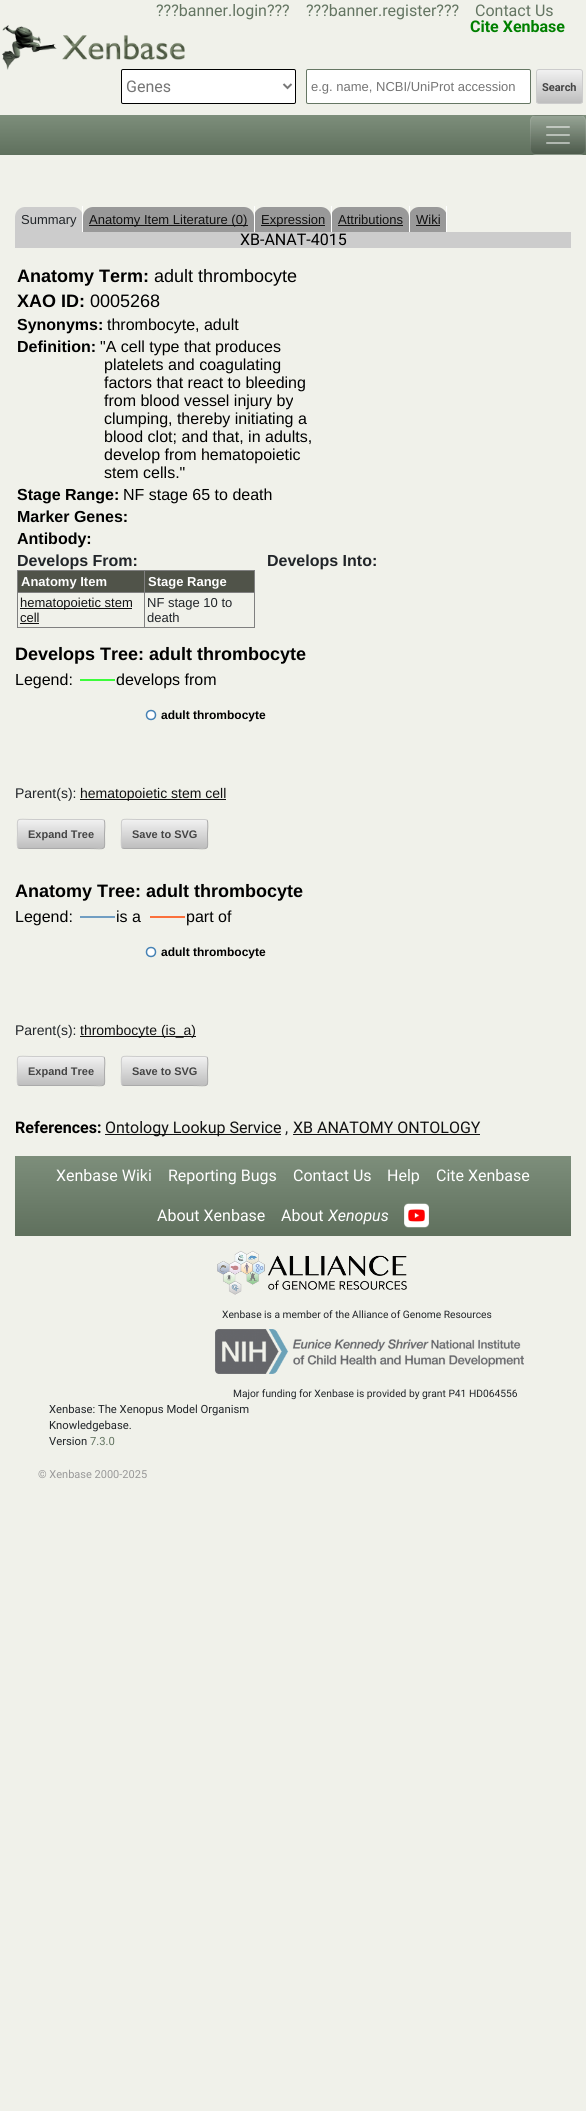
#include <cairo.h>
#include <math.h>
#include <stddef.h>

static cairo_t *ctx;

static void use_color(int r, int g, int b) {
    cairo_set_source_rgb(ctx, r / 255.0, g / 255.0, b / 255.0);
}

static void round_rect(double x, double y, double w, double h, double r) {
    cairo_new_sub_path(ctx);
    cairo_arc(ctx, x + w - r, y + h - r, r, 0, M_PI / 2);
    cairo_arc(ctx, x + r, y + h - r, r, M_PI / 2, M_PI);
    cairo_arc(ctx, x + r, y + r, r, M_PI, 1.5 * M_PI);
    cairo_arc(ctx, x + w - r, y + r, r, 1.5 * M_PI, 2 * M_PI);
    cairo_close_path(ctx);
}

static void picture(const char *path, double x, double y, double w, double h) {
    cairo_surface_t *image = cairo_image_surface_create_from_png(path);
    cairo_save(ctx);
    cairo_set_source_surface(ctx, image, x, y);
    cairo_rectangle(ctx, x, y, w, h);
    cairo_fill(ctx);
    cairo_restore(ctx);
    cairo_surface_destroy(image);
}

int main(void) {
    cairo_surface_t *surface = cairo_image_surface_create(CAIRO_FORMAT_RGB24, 586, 2111);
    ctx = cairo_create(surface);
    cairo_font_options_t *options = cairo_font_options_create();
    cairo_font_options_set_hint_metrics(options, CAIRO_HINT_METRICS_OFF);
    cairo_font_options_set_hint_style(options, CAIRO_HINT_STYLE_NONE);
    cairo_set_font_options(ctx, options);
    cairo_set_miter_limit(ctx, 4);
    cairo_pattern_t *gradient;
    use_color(240, 241, 234);
    cairo_paint(ctx);
    cairo_select_font_face(ctx, "Roboto", CAIRO_FONT_SLANT_NORMAL, CAIRO_FONT_WEIGHT_NORMAL);
    cairo_set_font_size(ctx, 16);
    use_color(100, 117, 98);
    cairo_move_to(ctx, 156, 16);
    cairo_show_text(ctx, "?\077?banner.login?\077?");
    cairo_move_to(ctx, 306, 16);
    cairo_show_text(ctx, "?\077?banner.register?\077?");
    cairo_move_to(ctx, 475, 16);
    cairo_show_text(ctx, "Contact Us");
    cairo_select_font_face(ctx, "Roboto", CAIRO_FONT_SLANT_NORMAL, CAIRO_FONT_WEIGHT_BOLD);
    use_color(0, 128, 0);
    cairo_move_to(ctx, 470, 32);
    cairo_show_text(ctx, "Cite Xenbase");
    use_color(255, 255, 255);
    round_rect(121.5, 69.5, 174, 34, 1.5);
    cairo_fill_preserve(ctx);
    use_color(0, 0, 0);
    cairo_set_line_width(ctx, 1);
    cairo_stroke(ctx);
    picture("img1.png", 2, 25, 183, 45);
    cairo_new_path(ctx);
    cairo_move_to(ctx, 283.5, 84);
    cairo_line_to(ctx, 287.5, 88);
    cairo_line_to(ctx, 291.5, 84);
    use_color(119, 119, 119);
    cairo_set_line_width(ctx, 2);
    cairo_stroke(ctx);
    cairo_select_font_face(ctx, "Roboto", CAIRO_FONT_SLANT_NORMAL, CAIRO_FONT_WEIGHT_NORMAL);
    use_color(117, 117, 117);
    cairo_move_to(ctx, 126, 92);
    cairo_show_text(ctx, "Genes");
    use_color(255, 255, 255);
    round_rect(306.5, 69.5, 224, 34, 1.5);
    cairo_fill_preserve(ctx);
    use_color(102, 119, 100);
    cairo_set_line_width(ctx, 1);
    cairo_stroke(ctx);
    cairo_select_font_face(ctx, "Liberation Sans", CAIRO_FONT_SLANT_NORMAL, CAIRO_FONT_WEIGHT_NORMAL);
    cairo_set_font_size(ctx, 13);
    use_color(117, 117, 117);
    cairo_move_to(ctx, 311, 91);
    cairo_show_text(ctx, "e.g. name, NCBI/UniProt accession");
    cairo_save(ctx);
    round_rect(536, 69, 47, 35, 3);
    cairo_clip(ctx);
    gradient = cairo_pattern_create_linear(560, 70, 560, 103);
    cairo_pattern_add_color_stop_rgba(gradient, 0, 0.945, 0.945, 0.945, 1);
    cairo_pattern_add_color_stop_rgba(gradient, 1, 0.745, 0.745, 0.745, 1);
    cairo_set_source(ctx, gradient);
    cairo_pattern_destroy(gradient);
    cairo_rectangle(ctx, 536, 70, 47, 33);
    cairo_fill(ctx);
    cairo_restore(ctx);
    round_rect(536.5, 69.5, 46, 34, 2.5);
    use_color(204, 204, 204);
    cairo_stroke(ctx);
    cairo_select_font_face(ctx, "Roboto", CAIRO_FONT_SLANT_NORMAL, CAIRO_FONT_WEIGHT_BOLD);
    cairo_set_font_size(ctx, 11);
    use_color(68, 68, 68);
    cairo_move_to(ctx, 542, 91);
    cairo_show_text(ctx, "Search");
    gradient = cairo_pattern_create_linear(293, 115, 293, 155);
    cairo_pattern_add_color_stop_rgba(gradient, 0, 0.49, 0.557, 0.482, 1);
    cairo_pattern_add_color_stop_rgba(gradient, 1, 0.373, 0.439, 0.365, 1);
    cairo_set_source(ctx, gradient);
    cairo_pattern_destroy(gradient);
    cairo_rectangle(ctx, 0, 115, 586, 40);
    cairo_fill(ctx);
    cairo_save(ctx);
    round_rect(530, 115, 56, 40, 6);
    cairo_clip(ctx);
    gradient = cairo_pattern_create_linear(558, 78, 558, 116);
    cairo_pattern_add_color_stop_rgba(gradient, 0, 0.592, 0.647, 0.584, 1);
    cairo_pattern_add_color_stop_rgba(gradient, 1, 0.392, 0.447, 0.384, 1);
    cairo_set_source(ctx, gradient);
    cairo_pattern_destroy(gradient);
    cairo_rectangle(ctx, 530, 115, 56, 1);
    cairo_fill(ctx);
    gradient = cairo_pattern_create_linear(558, 116, 558, 154);
    cairo_pattern_add_color_stop_rgba(gradient, 0, 1, 1, 1, 0.2);
    cairo_pattern_add_color_stop_rgba(gradient, 1, 0, 0, 0, 0.2);
    cairo_set_source(ctx, gradient);
    cairo_pattern_destroy(gradient);
    cairo_rectangle(ctx, 530, 116, 56, 38);
    cairo_fill(ctx);
    gradient = cairo_pattern_create_linear(558, 154, 558, 192);
    cairo_pattern_add_color_stop_rgba(gradient, 0, 0.498, 0.553, 0.49, 1);
    cairo_pattern_add_color_stop_rgba(gradient, 1, 0.298, 0.353, 0.29, 1);
    cairo_set_source(ctx, gradient);
    cairo_pattern_destroy(gradient);
    cairo_rectangle(ctx, 530, 154, 56, 1);
    cairo_fill(ctx);
    cairo_restore(ctx);
    round_rect(530.5, 115.5, 55, 39, 5.5);
    cairo_set_source_rgba(ctx, 1, 1, 1, 0.1);
    cairo_stroke(ctx);
    picture("img2.png", 546, 126, 24, 18);
    use_color(204, 204, 204);
    cairo_new_path(ctx);
    cairo_move_to(ctx, 25, 207);
    cairo_line_to(ctx, 73, 207);
    cairo_curve_to(ctx, 78.5, 207, 83, 211.5, 83, 217);
    cairo_line_to(ctx, 83, 232);
    cairo_line_to(ctx, 15, 232);
    cairo_line_to(ctx, 15, 217);
    cairo_curve_to(ctx, 15, 211.5, 19.5, 207, 25, 207);
    cairo_close_path(ctx);
    cairo_fill(ctx);
    use_color(255, 255, 255);
    cairo_rectangle(ctx, 82, 206, 1, 26);
    cairo_fill(ctx);
    cairo_select_font_face(ctx, "Liberation Sans", CAIRO_FONT_SLANT_NORMAL, CAIRO_FONT_WEIGHT_NORMAL);
    cairo_set_font_size(ctx, 13);
    use_color(33, 37, 41);
    cairo_move_to(ctx, 21, 224);
    cairo_show_text(ctx, "Summary");
    use_color(153, 153, 153);
    cairo_new_path(ctx);
    cairo_move_to(ctx, 93, 207);
    cairo_line_to(ctx, 244, 207);
    cairo_curve_to(ctx, 249.5, 207, 254, 211.5, 254, 217);
    cairo_line_to(ctx, 254, 232);
    cairo_line_to(ctx, 83, 232);
    cairo_line_to(ctx, 83, 217);
    cairo_curve_to(ctx, 83, 211.5, 87.5, 207, 93, 207);
    cairo_close_path(ctx);
    cairo_fill(ctx);
    cairo_new_path(ctx);
    cairo_move_to(ctx, 264, 207);
    cairo_line_to(ctx, 321, 207);
    cairo_curve_to(ctx, 326.5, 207, 331, 211.5, 331, 217);
    cairo_line_to(ctx, 331, 232);
    cairo_line_to(ctx, 254, 232);
    cairo_line_to(ctx, 254, 217);
    cairo_curve_to(ctx, 254, 211.5, 258.5, 207, 264, 207);
    cairo_close_path(ctx);
    cairo_fill(ctx);
    use_color(255, 255, 255);
    cairo_rectangle(ctx, 254, 206, 1, 26);
    cairo_fill(ctx);
    use_color(17, 17, 17);
    cairo_rectangle(ctx, 89, 225, 159, 1);
    cairo_fill(ctx);
    cairo_move_to(ctx, 89, 224);
    cairo_show_text(ctx, "Anatomy Item Literature (0)");
    use_color(153, 153, 153);
    cairo_new_path(ctx);
    cairo_move_to(ctx, 341, 207);
    cairo_line_to(ctx, 399, 207);
    cairo_curve_to(ctx, 404.5, 207, 409, 211.5, 409, 217);
    cairo_line_to(ctx, 409, 232);
    cairo_line_to(ctx, 331, 232);
    cairo_line_to(ctx, 331, 217);
    cairo_curve_to(ctx, 331, 211.5, 335.5, 207, 341, 207);
    cairo_close_path(ctx);
    cairo_fill(ctx);
    use_color(255, 255, 255);
    cairo_rectangle(ctx, 331, 206, 1, 26);
    cairo_fill(ctx);
    use_color(17, 17, 17);
    cairo_rectangle(ctx, 261, 225, 64, 1);
    cairo_fill(ctx);
    cairo_move_to(ctx, 261, 224);
    cairo_show_text(ctx, "Expression");
    use_color(153, 153, 153);
    cairo_new_path(ctx);
    cairo_move_to(ctx, 419, 207);
    cairo_line_to(ctx, 437, 207);
    cairo_curve_to(ctx, 442.5, 207, 447, 211.5, 447, 217);
    cairo_line_to(ctx, 447, 232);
    cairo_line_to(ctx, 409, 232);
    cairo_line_to(ctx, 409, 217);
    cairo_curve_to(ctx, 409, 211.5, 413.5, 207, 419, 207);
    cairo_close_path(ctx);
    cairo_fill(ctx);
    use_color(255, 255, 255);
    cairo_rectangle(ctx, 409, 206, 1, 26);
    cairo_fill(ctx);
    use_color(17, 17, 17);
    cairo_move_to(ctx, 338, 224);
    cairo_show_text(ctx, "Attributions");
    cairo_rectangle(ctx, 338, 225, 65, 1);
    cairo_fill(ctx);
    use_color(255, 255, 255);
    cairo_rectangle(ctx, 446, 206, 1, 26);
    cairo_fill(ctx);
    use_color(17, 17, 17);
    cairo_move_to(ctx, 416, 224);
    cairo_show_text(ctx, "Wiki");
    cairo_rectangle(ctx, 416, 225, 24, 1);
    cairo_fill(ctx);
    use_color(204, 204, 204);
    cairo_rectangle(ctx, 15, 232, 556, 16);
    cairo_fill(ctx);
    cairo_select_font_face(ctx, "Roboto", CAIRO_FONT_SLANT_NORMAL, CAIRO_FONT_WEIGHT_NORMAL);
    cairo_set_font_size(ctx, 16);
    use_color(0, 0, 0);
    cairo_move_to(ctx, 240, 245);
    cairo_show_text(ctx, "XB-ANAT-4015");
    cairo_select_font_face(ctx, "Liberation Sans", CAIRO_FONT_SLANT_NORMAL, CAIRO_FONT_WEIGHT_BOLD);
    cairo_set_font_size(ctx, 18);
    cairo_move_to(ctx, 17, 282);
    cairo_show_text(ctx, "Anatomy Term:");
    cairo_select_font_face(ctx, "Liberation Sans", CAIRO_FONT_SLANT_NORMAL, CAIRO_FONT_WEIGHT_NORMAL);
    cairo_move_to(ctx, 154, 282);
    cairo_show_text(ctx, "adult thrombocyte");
    cairo_select_font_face(ctx, "Liberation Sans", CAIRO_FONT_SLANT_NORMAL, CAIRO_FONT_WEIGHT_BOLD);
    cairo_move_to(ctx, 17, 307);
    cairo_show_text(ctx, "XAO ID:");
    cairo_select_font_face(ctx, "Liberation Sans", CAIRO_FONT_SLANT_NORMAL, CAIRO_FONT_WEIGHT_NORMAL);
    cairo_move_to(ctx, 90, 307);
    cairo_show_text(ctx, "0005268");
    cairo_select_font_face(ctx, "Liberation Sans", CAIRO_FONT_SLANT_NORMAL, CAIRO_FONT_WEIGHT_BOLD);
    cairo_set_font_size(ctx, 16);
    cairo_move_to(ctx, 17, 330);
    cairo_show_text(ctx, "Synonyms:");
    cairo_select_font_face(ctx, "Liberation Sans", CAIRO_FONT_SLANT_NORMAL, CAIRO_FONT_WEIGHT_NORMAL);
    cairo_move_to(ctx, 107, 330);
    cairo_show_text(ctx, "thrombocyte, adult");
    cairo_select_font_face(ctx, "Liberation Sans", CAIRO_FONT_SLANT_NORMAL, CAIRO_FONT_WEIGHT_BOLD);
    cairo_move_to(ctx, 17, 352);
    cairo_show_text(ctx, "Definition:");
    cairo_select_font_face(ctx, "Liberation Sans", CAIRO_FONT_SLANT_NORMAL, CAIRO_FONT_WEIGHT_NORMAL);
    cairo_move_to(ctx, 100, 352);
    cairo_show_text(ctx, "\"A cell type that produces");
    cairo_move_to(ctx, 104, 370);
    cairo_show_text(ctx, "platelets and coagulating");
    cairo_move_to(ctx, 104, 388);
    cairo_show_text(ctx, "factors that react to bleeding");
    cairo_move_to(ctx, 104, 406);
    cairo_show_text(ctx, "from blood vessel injury by");
    cairo_move_to(ctx, 104, 424);
    cairo_show_text(ctx, "clumping, thereby initiating a");
    cairo_move_to(ctx, 104, 442);
    cairo_show_text(ctx, "blood clot; and that, in adults,");
    cairo_move_to(ctx, 104, 460);
    cairo_show_text(ctx, "develop from hematopoietic");
    cairo_move_to(ctx, 104, 478);
    cairo_show_text(ctx, "stem cells.\"");
    cairo_select_font_face(ctx, "Liberation Sans", CAIRO_FONT_SLANT_NORMAL, CAIRO_FONT_WEIGHT_BOLD);
    cairo_move_to(ctx, 17, 500);
    cairo_show_text(ctx, "Stage Range:");
    cairo_select_font_face(ctx, "Liberation Sans", CAIRO_FONT_SLANT_NORMAL, CAIRO_FONT_WEIGHT_NORMAL);
    cairo_move_to(ctx, 123, 500);
    cairo_show_text(ctx, "NF stage 65 to death");
    cairo_select_font_face(ctx, "Liberation Sans", CAIRO_FONT_SLANT_NORMAL, CAIRO_FONT_WEIGHT_BOLD);
    cairo_move_to(ctx, 17, 522);
    cairo_show_text(ctx, "Marker Genes:");
    cairo_move_to(ctx, 17, 544);
    cairo_show_text(ctx, "Antibody:");
    use_color(33, 37, 41);
    cairo_move_to(ctx, 17, 566);
    cairo_show_text(ctx, "Develops From:");
    use_color(128, 128, 128);
    cairo_rectangle(ctx, 17, 570, 238, 1);
    cairo_fill(ctx);
    cairo_rectangle(ctx, 254, 570, 1, 58);
    cairo_fill(ctx);
    cairo_rectangle(ctx, 17, 627, 238, 1);
    cairo_fill(ctx);
    cairo_rectangle(ctx, 17, 570, 1, 58);
    cairo_fill(ctx);
    use_color(80, 83, 73);
    cairo_rectangle(ctx, 18, 571, 126, 21);
    cairo_fill(ctx);
    cairo_set_font_size(ctx, 13);
    use_color(255, 255, 255);
    cairo_move_to(ctx, 21, 586);
    cairo_show_text(ctx, "Anatomy Item");
    use_color(80, 83, 73);
    cairo_rectangle(ctx, 145, 571, 109, 21);
    cairo_fill(ctx);
    use_color(128, 128, 128);
    cairo_rectangle(ctx, 144, 592, 111, 1);
    cairo_fill(ctx);
    cairo_rectangle(ctx, 144, 592, 1, 36);
    cairo_fill(ctx);
    cairo_rectangle(ctx, 17, 592, 128, 1);
    cairo_fill(ctx);
    cairo_rectangle(ctx, 144, 570, 1, 23);
    cairo_fill(ctx);
    use_color(255, 255, 255);
    cairo_move_to(ctx, 148, 586);
    cairo_show_text(ctx, "Stage Range");
    use_color(17, 17, 17);
    cairo_rectangle(ctx, 20, 608, 112, 1);
    cairo_fill(ctx);
    cairo_select_font_face(ctx, "Liberation Sans", CAIRO_FONT_SLANT_NORMAL, CAIRO_FONT_WEIGHT_NORMAL);
    cairo_move_to(ctx, 20, 607);
    cairo_show_text(ctx, "hematopoietic stem");
    cairo_move_to(ctx, 20, 622);
    cairo_show_text(ctx, "cell");
    cairo_rectangle(ctx, 20, 623, 19, 1);
    cairo_fill(ctx);
    use_color(33, 37, 41);
    cairo_move_to(ctx, 147, 607);
    cairo_show_text(ctx, "NF stage 10 to");
    cairo_move_to(ctx, 147, 622);
    cairo_show_text(ctx, "death");
    cairo_select_font_face(ctx, "Liberation Sans", CAIRO_FONT_SLANT_NORMAL, CAIRO_FONT_WEIGHT_BOLD);
    cairo_set_font_size(ctx, 16);
    cairo_move_to(ctx, 267, 566);
    cairo_show_text(ctx, "Develops Into:");
    cairo_set_font_size(ctx, 18);
    use_color(0, 0, 0);
    cairo_move_to(ctx, 15, 660);
    cairo_show_text(ctx, "Develops Tree: adult thrombocyte");
    cairo_select_font_face(ctx, "Liberation Sans", CAIRO_FONT_SLANT_NORMAL, CAIRO_FONT_WEIGHT_NORMAL);
    cairo_set_font_size(ctx, 16);
    cairo_move_to(ctx, 15, 685);
    cairo_show_text(ctx, "Legend:");
    cairo_move_to(ctx, 116, 685);
    cairo_show_text(ctx, "develops from");
    use_color(60, 252, 59);
    cairo_rectangle(ctx, 80, 679, 35, 2);
    cairo_fill(ctx);
    cairo_select_font_face(ctx, "Liberation Sans", CAIRO_FONT_SLANT_NORMAL, CAIRO_FONT_WEIGHT_BOLD);
    cairo_set_font_size(ctx, 12);
    use_color(0, 0, 0);
    cairo_move_to(ctx, 161, 719);
    cairo_show_text(ctx, "adult thrombocyte");
    use_color(255, 255, 255);
    cairo_new_path(ctx);
    cairo_arc(ctx, 151, 715, 4.5, 0, 2 * M_PI);
    cairo_fill_preserve(ctx);
    use_color(70, 130, 180);
    cairo_set_line_width(ctx, 1.5);
    cairo_stroke(ctx);
    cairo_select_font_face(ctx, "Liberation Sans", CAIRO_FONT_SLANT_NORMAL, CAIRO_FONT_WEIGHT_NORMAL);
    cairo_set_font_size(ctx, 14);
    use_color(33, 37, 41);
    cairo_move_to(ctx, 15, 798);
    cairo_show_text(ctx, "Parent(s):");
    use_color(17, 17, 17);
    cairo_rectangle(ctx, 80, 799, 146, 1);
    cairo_fill(ctx);
    cairo_move_to(ctx, 80, 798);
    cairo_show_text(ctx, "hematopoietic stem cell");
    cairo_save(ctx);
    round_rect(17, 819, 88, 30, 3);
    cairo_clip(ctx);
    gradient = cairo_pattern_create_linear(61, 820, 61, 848);
    cairo_pattern_add_color_stop_rgba(gradient, 0, 0.945, 0.945, 0.945, 1);
    cairo_pattern_add_color_stop_rgba(gradient, 1, 0.745, 0.745, 0.745, 1);
    cairo_set_source(ctx, gradient);
    cairo_pattern_destroy(gradient);
    cairo_rectangle(ctx, 17, 820, 88, 28);
    cairo_fill(ctx);
    cairo_restore(ctx);
    cairo_new_path(ctx);
    cairo_move_to(ctx, 104, 820);
    cairo_curve_to(ctx, 105.5, 822, 104.5, 831.5, 104.5, 834);
    cairo_curve_to(ctx, 104.5, 852, 107.5, 848.5, 88.5, 848.5);
    cairo_line_to(ctx, 20, 848.5);
    cairo_line_to(ctx, 18, 848);
    use_color(170, 170, 170);
    cairo_set_line_width(ctx, 1);
    cairo_stroke(ctx);
    cairo_new_path(ctx);
    cairo_move_to(ctx, 18, 848);
    cairo_curve_to(ctx, 16.5, 846, 17.5, 836.5, 17.5, 834);
    cairo_curve_to(ctx, 17.5, 816, 14.5, 819.5, 33.5, 819.5);
    cairo_line_to(ctx, 102, 819.5);
    cairo_line_to(ctx, 104, 820);
    use_color(204, 204, 204);
    cairo_stroke(ctx);
    cairo_select_font_face(ctx, "Liberation Sans", CAIRO_FONT_SLANT_NORMAL, CAIRO_FONT_WEIGHT_BOLD);
    cairo_set_font_size(ctx, 11);
    use_color(68, 68, 68);
    cairo_move_to(ctx, 28, 838);
    cairo_show_text(ctx, "Expand Tree");
    cairo_save(ctx);
    round_rect(121, 819, 87, 30, 3);
    cairo_clip(ctx);
    gradient = cairo_pattern_create_linear(165, 820, 165, 848);
    cairo_pattern_add_color_stop_rgba(gradient, 0, 0.945, 0.945, 0.945, 1);
    cairo_pattern_add_color_stop_rgba(gradient, 1, 0.745, 0.745, 0.745, 1);
    cairo_set_source(ctx, gradient);
    cairo_pattern_destroy(gradient);
    cairo_rectangle(ctx, 121, 820, 87, 28);
    cairo_fill(ctx);
    cairo_restore(ctx);
    cairo_new_path(ctx);
    cairo_move_to(ctx, 207, 820);
    cairo_curve_to(ctx, 208.5, 822, 207.5, 831.5, 207.5, 834);
    cairo_curve_to(ctx, 207.5, 852, 210.5, 848.5, 191.5, 848.5);
    cairo_line_to(ctx, 124, 848.5);
    cairo_line_to(ctx, 122, 848);
    use_color(170, 170, 170);
    cairo_stroke(ctx);
    cairo_new_path(ctx);
    cairo_move_to(ctx, 122, 848);
    cairo_curve_to(ctx, 120.5, 846, 121.5, 836.5, 121.5, 834);
    cairo_curve_to(ctx, 121.5, 816, 118.5, 819.5, 137.5, 819.5);
    cairo_line_to(ctx, 205, 819.5);
    cairo_line_to(ctx, 207, 820);
    use_color(204, 204, 204);
    cairo_stroke(ctx);
    use_color(68, 68, 68);
    cairo_move_to(ctx, 132, 838);
    cairo_show_text(ctx, "Save to SVG");
    cairo_set_font_size(ctx, 18);
    use_color(0, 0, 0);
    cairo_move_to(ctx, 15, 897);
    cairo_show_text(ctx, "Anatomy Tree: adult thrombocyte");
    cairo_select_font_face(ctx, "Liberation Sans", CAIRO_FONT_SLANT_NORMAL, CAIRO_FONT_WEIGHT_NORMAL);
    cairo_set_font_size(ctx, 16);
    cairo_move_to(ctx, 15, 922);
    cairo_show_text(ctx, "Legend:");
    cairo_move_to(ctx, 116, 922);
    cairo_show_text(ctx, "is a");
    use_color(113, 158, 194);
    cairo_rectangle(ctx, 80, 916, 35, 2);
    cairo_fill(ctx);
    use_color(0, 0, 0);
    cairo_move_to(ctx, 186, 922);
    cairo_show_text(ctx, "part of");
    use_color(251, 112, 59);
    cairo_rectangle(ctx, 150, 916, 35, 2);
    cairo_fill(ctx);
    cairo_select_font_face(ctx, "Liberation Sans", CAIRO_FONT_SLANT_NORMAL, CAIRO_FONT_WEIGHT_BOLD);
    cairo_set_font_size(ctx, 12);
    use_color(0, 0, 0);
    cairo_move_to(ctx, 161, 956);
    cairo_show_text(ctx, "adult thrombocyte");
    use_color(255, 255, 255);
    cairo_new_path(ctx);
    cairo_arc(ctx, 151, 952, 4.5, 0, 2 * M_PI);
    cairo_fill_preserve(ctx);
    use_color(70, 130, 180);
    cairo_set_line_width(ctx, 1.5);
    cairo_stroke(ctx);
    cairo_select_font_face(ctx, "Liberation Sans", CAIRO_FONT_SLANT_NORMAL, CAIRO_FONT_WEIGHT_NORMAL);
    cairo_set_font_size(ctx, 14);
    use_color(33, 37, 41);
    cairo_move_to(ctx, 15, 1035);
    cairo_show_text(ctx, "Parent(s):");
    use_color(17, 17, 17);
    cairo_rectangle(ctx, 80, 1036, 116, 1);
    cairo_fill(ctx);
    cairo_move_to(ctx, 80, 1035);
    cairo_show_text(ctx, "thrombocyte (is_a)");
    cairo_save(ctx);
    round_rect(17, 1056, 88, 30, 3);
    cairo_clip(ctx);
    gradient = cairo_pattern_create_linear(61, 1057, 61, 1085);
    cairo_pattern_add_color_stop_rgba(gradient, 0, 0.945, 0.945, 0.945, 1);
    cairo_pattern_add_color_stop_rgba(gradient, 1, 0.745, 0.745, 0.745, 1);
    cairo_set_source(ctx, gradient);
    cairo_pattern_destroy(gradient);
    cairo_rectangle(ctx, 17, 1057, 88, 28);
    cairo_fill(ctx);
    cairo_restore(ctx);
    cairo_new_path(ctx);
    cairo_move_to(ctx, 104, 1057);
    cairo_curve_to(ctx, 105.5, 1059, 104.5, 1068.5, 104.5, 1071);
    cairo_curve_to(ctx, 104.5, 1089, 107.5, 1085.5, 88.5, 1085.5);
    cairo_line_to(ctx, 20, 1085.5);
    cairo_line_to(ctx, 18, 1085);
    use_color(170, 170, 170);
    cairo_set_line_width(ctx, 1);
    cairo_stroke(ctx);
    cairo_new_path(ctx);
    cairo_move_to(ctx, 18, 1085);
    cairo_curve_to(ctx, 16.5, 1083, 17.5, 1073.5, 17.5, 1071);
    cairo_curve_to(ctx, 17.5, 1053, 14.5, 1056.5, 33.5, 1056.5);
    cairo_line_to(ctx, 102, 1056.5);
    cairo_line_to(ctx, 104, 1057);
    use_color(204, 204, 204);
    cairo_stroke(ctx);
    cairo_select_font_face(ctx, "Liberation Sans", CAIRO_FONT_SLANT_NORMAL, CAIRO_FONT_WEIGHT_BOLD);
    cairo_set_font_size(ctx, 11);
    use_color(68, 68, 68);
    cairo_move_to(ctx, 28, 1075);
    cairo_show_text(ctx, "Expand Tree");
    cairo_save(ctx);
    round_rect(121, 1056, 87, 30, 3);
    cairo_clip(ctx);
    gradient = cairo_pattern_create_linear(165, 1057, 165, 1085);
    cairo_pattern_add_color_stop_rgba(gradient, 0, 0.945, 0.945, 0.945, 1);
    cairo_pattern_add_color_stop_rgba(gradient, 1, 0.745, 0.745, 0.745, 1);
    cairo_set_source(ctx, gradient);
    cairo_pattern_destroy(gradient);
    cairo_rectangle(ctx, 121, 1057, 87, 28);
    cairo_fill(ctx);
    cairo_restore(ctx);
    cairo_new_path(ctx);
    cairo_move_to(ctx, 207, 1057);
    cairo_curve_to(ctx, 208.5, 1059, 207.5, 1068.5, 207.5, 1071);
    cairo_curve_to(ctx, 207.5, 1089, 210.5, 1085.5, 191.5, 1085.5);
    cairo_line_to(ctx, 124, 1085.5);
    cairo_line_to(ctx, 122, 1085);
    use_color(170, 170, 170);
    cairo_stroke(ctx);
    cairo_new_path(ctx);
    cairo_move_to(ctx, 122, 1085);
    cairo_curve_to(ctx, 120.5, 1083, 121.5, 1073.5, 121.5, 1071);
    cairo_curve_to(ctx, 121.5, 1053, 118.5, 1056.5, 137.5, 1056.5);
    cairo_line_to(ctx, 205, 1056.5);
    cairo_line_to(ctx, 207, 1057);
    use_color(204, 204, 204);
    cairo_stroke(ctx);
    use_color(68, 68, 68);
    cairo_move_to(ctx, 132, 1075);
    cairo_show_text(ctx, "Save to SVG");
    cairo_select_font_face(ctx, "Roboto", CAIRO_FONT_SLANT_NORMAL, CAIRO_FONT_WEIGHT_BOLD);
    cairo_set_font_size(ctx, 16);
    use_color(0, 0, 0);
    cairo_move_to(ctx, 15, 1133);
    cairo_show_text(ctx, "References:");
    use_color(17, 17, 17);
    cairo_rectangle(ctx, 105, 1134, 176, 1);
    cairo_fill(ctx);
    cairo_select_font_face(ctx, "Roboto", CAIRO_FONT_SLANT_NORMAL, CAIRO_FONT_WEIGHT_NORMAL);
    cairo_move_to(ctx, 105, 1133);
    cairo_show_text(ctx, "Ontology Lookup Service");
    use_color(33, 37, 41);
    cairo_move_to(ctx, 285, 1133);
    cairo_show_text(ctx, ",");
    use_color(17, 17, 17);
    cairo_move_to(ctx, 293, 1133);
    cairo_show_text(ctx, "XB ANATOMY ONTOLOGY");
    cairo_rectangle(ctx, 293, 1134, 187, 1);
    cairo_fill(ctx);
    gradient = cairo_pattern_create_linear(293, 1156, 293, 1236);
    cairo_pattern_add_color_stop_rgba(gradient, 0, 0.49, 0.557, 0.482, 1);
    cairo_pattern_add_color_stop_rgba(gradient, 1, 0.373, 0.439, 0.365, 1);
    cairo_set_source(ctx, gradient);
    cairo_pattern_destroy(gradient);
    cairo_rectangle(ctx, 15, 1156, 556, 80);
    cairo_fill(ctx);
    use_color(255, 255, 255);
    cairo_move_to(ctx, 56, 1181);
    cairo_show_text(ctx, "Xenbase Wiki");
    cairo_move_to(ctx, 168, 1181);
    cairo_show_text(ctx, "Reporting Bugs");
    cairo_move_to(ctx, 293, 1181);
    cairo_show_text(ctx, "Contact Us");
    cairo_move_to(ctx, 387, 1181);
    cairo_show_text(ctx, "Help");
    cairo_move_to(ctx, 436, 1181);
    cairo_show_text(ctx, "Cite Xenbase");
    cairo_move_to(ctx, 157, 1221);
    cairo_show_text(ctx, "About Xenbase");
    cairo_move_to(ctx, 281, 1221);
    cairo_show_text(ctx, "About");
    cairo_select_font_face(ctx, "Roboto", CAIRO_FONT_SLANT_ITALIC, CAIRO_FONT_WEIGHT_NORMAL);
    cairo_move_to(ctx, 328, 1221);
    cairo_show_text(ctx, "Xenopus");
    picture("img3.png", 404, 1203, 25, 25);
    picture("img4.png", 217, 1250, 190, 45);
    cairo_select_font_face(ctx, "Roboto", CAIRO_FONT_SLANT_NORMAL, CAIRO_FONT_WEIGHT_NORMAL);
    cairo_set_font_size(ctx, 10.25);
    use_color(33, 37, 41);
    cairo_move_to(ctx, 222, 1318);
    cairo_show_text(ctx, "Xenbase is a member of the Alliance of Genome Resources");
    picture("img5.png", 215, 1329, 309, 45);
    cairo_move_to(ctx, 233, 1397);
    cairo_show_text(ctx, "Major funding for Xenbase is provided by grant P41 HD064556");
    cairo_set_font_size(ctx, 11.25);
    cairo_move_to(ctx, 49, 1413);
    cairo_show_text(ctx, "Xenbase: The Xenopus Model Organism");
    cairo_move_to(ctx, 49, 1429);
    cairo_show_text(ctx, "Knowledgebase.");
    cairo_move_to(ctx, 49, 1445);
    cairo_show_text(ctx, "Version");
    use_color(100, 117, 98);
    cairo_move_to(ctx, 90, 1445);
    cairo_show_text(ctx, "7.3.0");
    cairo_set_font_size(ctx, 11);
    use_color(153, 153, 153);
    cairo_move_to(ctx, 38, 1478);
    cairo_show_text(ctx, "© Xenbase 2000-2025");
    cairo_surface_write_to_png(surface, "result.png");
    cairo_font_options_destroy(options);
    cairo_destroy(ctx);
    cairo_surface_destroy(surface);
    return 0;
}
